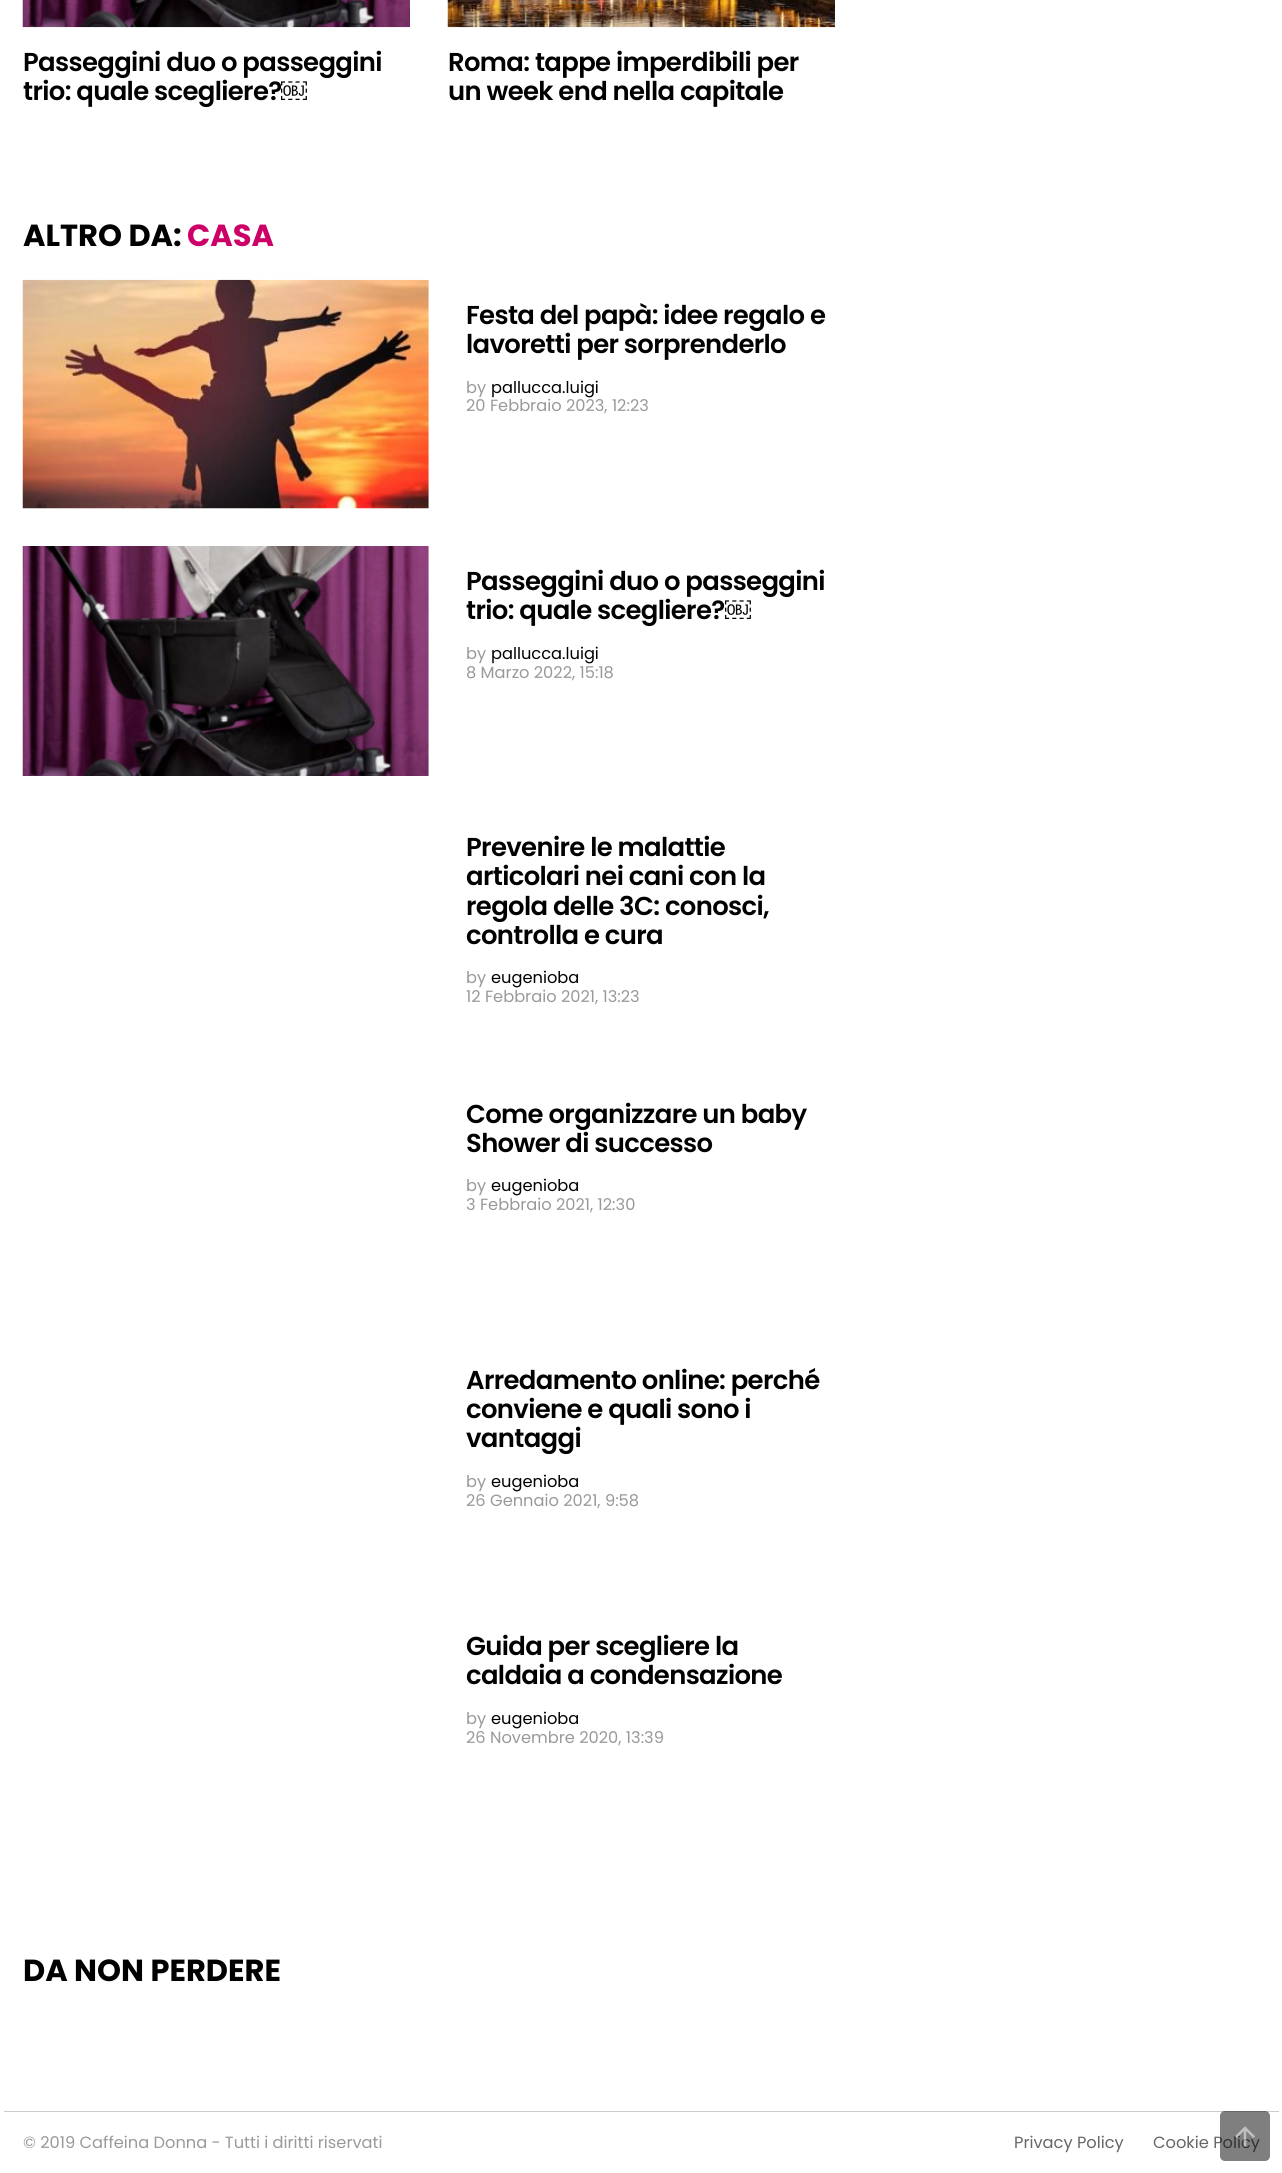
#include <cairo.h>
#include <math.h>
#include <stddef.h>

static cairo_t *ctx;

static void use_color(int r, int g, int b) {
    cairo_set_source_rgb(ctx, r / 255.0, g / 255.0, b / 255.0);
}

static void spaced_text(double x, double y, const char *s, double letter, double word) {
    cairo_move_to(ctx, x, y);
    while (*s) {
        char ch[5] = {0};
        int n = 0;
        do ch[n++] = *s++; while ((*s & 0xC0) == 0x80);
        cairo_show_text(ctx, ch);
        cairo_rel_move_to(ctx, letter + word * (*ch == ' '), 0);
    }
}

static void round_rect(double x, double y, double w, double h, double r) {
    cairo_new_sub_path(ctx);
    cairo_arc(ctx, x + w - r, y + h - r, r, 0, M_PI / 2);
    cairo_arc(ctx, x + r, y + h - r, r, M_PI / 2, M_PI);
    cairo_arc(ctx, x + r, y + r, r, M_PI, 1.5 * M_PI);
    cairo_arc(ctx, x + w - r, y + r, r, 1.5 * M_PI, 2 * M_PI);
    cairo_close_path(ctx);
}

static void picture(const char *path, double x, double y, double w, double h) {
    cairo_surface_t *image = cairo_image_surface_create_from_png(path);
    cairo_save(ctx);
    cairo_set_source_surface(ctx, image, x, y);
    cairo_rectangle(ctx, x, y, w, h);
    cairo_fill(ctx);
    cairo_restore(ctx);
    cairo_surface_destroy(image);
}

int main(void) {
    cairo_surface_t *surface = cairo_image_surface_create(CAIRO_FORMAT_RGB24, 1282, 2173);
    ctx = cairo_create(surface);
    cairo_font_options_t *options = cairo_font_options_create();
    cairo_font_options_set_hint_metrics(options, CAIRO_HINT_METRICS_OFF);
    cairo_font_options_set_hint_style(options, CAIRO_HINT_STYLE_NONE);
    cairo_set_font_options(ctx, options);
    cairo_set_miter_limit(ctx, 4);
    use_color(255, 255, 255);
    cairo_paint(ctx);
    picture("img1.png", 22, 0, 388, 28);
    cairo_select_font_face(ctx, "Poppins SemiBold", CAIRO_FONT_SLANT_NORMAL, CAIRO_FONT_WEIGHT_NORMAL);
    cairo_set_font_size(ctx, 25.9);
    use_color(0, 0, 0);
    spaced_text(23, 71, "Passeggini duo o passeggini", -0.65, 0);
    spaced_text(23, 100, "trio: quale scegliere?", -0.65, 0);
    cairo_select_font_face(ctx, "Liberation Sans", CAIRO_FONT_SLANT_NORMAL, CAIRO_FONT_WEIGHT_BOLD);
    spaced_text(281, 100, "￼", -0.65, 0);
    picture("img2.png", 447, 0, 388, 28);
    cairo_select_font_face(ctx, "Poppins SemiBold", CAIRO_FONT_SLANT_NORMAL, CAIRO_FONT_WEIGHT_NORMAL);
    spaced_text(448, 71, "Roma: tappe imperdibili per", -0.65, 0);
    spaced_text(448, 100, "un week end nella capitale", -0.65, 0);
    cairo_select_font_face(ctx, "Poppins", CAIRO_FONT_SLANT_NORMAL, CAIRO_FONT_WEIGHT_BOLD);
    cairo_set_font_size(ctx, 30.5);
    cairo_move_to(ctx, 23, 246);
    cairo_show_text(ctx, "ALTRO DA:");
    use_color(204, 0, 102);
    cairo_move_to(ctx, 187, 246);
    cairo_show_text(ctx, "CASA");
    picture("img3.png", 22, 279, 407, 230);
    cairo_select_font_face(ctx, "Poppins SemiBold", CAIRO_FONT_SLANT_NORMAL, CAIRO_FONT_WEIGHT_NORMAL);
    cairo_set_font_size(ctx, 25.9);
    use_color(0, 0, 0);
    spaced_text(466, 324, "Festa del papà: idee regalo e", -0.65, 0);
    spaced_text(466, 353, "lavoretti per sorprenderlo", -0.65, 0);
    cairo_select_font_face(ctx, "Poppins", CAIRO_FONT_SLANT_NORMAL, CAIRO_FONT_WEIGHT_NORMAL);
    cairo_set_font_size(ctx, 16.25);
    use_color(153, 153, 153);
    cairo_move_to(ctx, 466, 393);
    cairo_show_text(ctx, "by");
    use_color(0, 0, 0);
    cairo_move_to(ctx, 491, 393);
    cairo_show_text(ctx, "pallucca.luigi");
    use_color(153, 153, 153);
    cairo_move_to(ctx, 466, 411);
    cairo_show_text(ctx, "20 Febbraio 2023, 12:23");
    picture("img4.png", 22, 546, 407, 230);
    cairo_select_font_face(ctx, "Poppins SemiBold", CAIRO_FONT_SLANT_NORMAL, CAIRO_FONT_WEIGHT_NORMAL);
    cairo_set_font_size(ctx, 25.9);
    use_color(0, 0, 0);
    spaced_text(466, 590, "Passeggini duo o passeggini", -0.65, 0);
    spaced_text(466, 619, "trio: quale scegliere?", -0.65, 0);
    cairo_select_font_face(ctx, "Liberation Sans", CAIRO_FONT_SLANT_NORMAL, CAIRO_FONT_WEIGHT_BOLD);
    spaced_text(725, 619, "￼", -0.65, 0);
    cairo_select_font_face(ctx, "Poppins", CAIRO_FONT_SLANT_NORMAL, CAIRO_FONT_WEIGHT_NORMAL);
    cairo_set_font_size(ctx, 16.25);
    use_color(153, 153, 153);
    cairo_move_to(ctx, 466, 659);
    cairo_show_text(ctx, "by");
    use_color(0, 0, 0);
    cairo_move_to(ctx, 491, 659);
    cairo_show_text(ctx, "pallucca.luigi");
    use_color(153, 153, 153);
    cairo_move_to(ctx, 466, 678);
    cairo_show_text(ctx, "8 Marzo 2022, 15:18");
    cairo_select_font_face(ctx, "Poppins SemiBold", CAIRO_FONT_SLANT_NORMAL, CAIRO_FONT_WEIGHT_NORMAL);
    cairo_set_font_size(ctx, 25.9);
    use_color(0, 0, 0);
    spaced_text(466, 856, "Prevenire le malattie", -0.65, 0);
    spaced_text(466, 885, "articolari nei cani con la", -0.65, 0);
    spaced_text(466, 915, "regola delle 3C: conosci,", -0.65, 0);
    spaced_text(466, 944, "controlla e cura", -0.65, 0);
    cairo_select_font_face(ctx, "Poppins", CAIRO_FONT_SLANT_NORMAL, CAIRO_FONT_WEIGHT_NORMAL);
    cairo_set_font_size(ctx, 16.25);
    use_color(153, 153, 153);
    cairo_move_to(ctx, 466, 983);
    cairo_show_text(ctx, "by");
    use_color(0, 0, 0);
    cairo_move_to(ctx, 491, 983);
    cairo_show_text(ctx, "eugenioba");
    use_color(153, 153, 153);
    cairo_move_to(ctx, 466, 1002);
    cairo_show_text(ctx, "12 Febbraio 2021, 13:23");
    cairo_select_font_face(ctx, "Poppins SemiBold", CAIRO_FONT_SLANT_NORMAL, CAIRO_FONT_WEIGHT_NORMAL);
    cairo_set_font_size(ctx, 25.9);
    use_color(0, 0, 0);
    spaced_text(466, 1123, "Come organizzare un baby", -0.65, 0);
    spaced_text(466, 1152, "Shower di successo", -0.65, 0);
    cairo_select_font_face(ctx, "Poppins", CAIRO_FONT_SLANT_NORMAL, CAIRO_FONT_WEIGHT_NORMAL);
    cairo_set_font_size(ctx, 16.25);
    use_color(153, 153, 153);
    cairo_move_to(ctx, 466, 1191);
    cairo_show_text(ctx, "by");
    use_color(0, 0, 0);
    cairo_move_to(ctx, 491, 1191);
    cairo_show_text(ctx, "eugenioba");
    use_color(153, 153, 153);
    cairo_move_to(ctx, 466, 1210);
    cairo_show_text(ctx, "3 Febbraio 2021, 12:30");
    cairo_select_font_face(ctx, "Poppins SemiBold", CAIRO_FONT_SLANT_NORMAL, CAIRO_FONT_WEIGHT_NORMAL);
    cairo_set_font_size(ctx, 25.9);
    use_color(0, 0, 0);
    spaced_text(466, 1389, "Arredamento online: perché", -0.65, 0);
    spaced_text(466, 1418, "conviene e quali sono i", -0.65, 0);
    spaced_text(466, 1447, "vantaggi", -0.65, 0);
    cairo_select_font_face(ctx, "Poppins", CAIRO_FONT_SLANT_NORMAL, CAIRO_FONT_WEIGHT_NORMAL);
    cairo_set_font_size(ctx, 16.25);
    use_color(153, 153, 153);
    cairo_move_to(ctx, 466, 1487);
    cairo_show_text(ctx, "by");
    use_color(0, 0, 0);
    cairo_move_to(ctx, 491, 1487);
    cairo_show_text(ctx, "eugenioba");
    use_color(153, 153, 153);
    cairo_move_to(ctx, 466, 1506);
    cairo_show_text(ctx, "26 Gennaio 2021, 9:58");
    cairo_select_font_face(ctx, "Poppins SemiBold", CAIRO_FONT_SLANT_NORMAL, CAIRO_FONT_WEIGHT_NORMAL);
    cairo_set_font_size(ctx, 25.9);
    use_color(0, 0, 0);
    spaced_text(466, 1655, "Guida per scegliere la", -0.65, 0);
    spaced_text(466, 1684, "caldaia a condensazione", -0.65, 0);
    cairo_select_font_face(ctx, "Poppins", CAIRO_FONT_SLANT_NORMAL, CAIRO_FONT_WEIGHT_NORMAL);
    cairo_set_font_size(ctx, 16.25);
    use_color(153, 153, 153);
    cairo_move_to(ctx, 466, 1724);
    cairo_show_text(ctx, "by");
    use_color(0, 0, 0);
    cairo_move_to(ctx, 491, 1724);
    cairo_show_text(ctx, "eugenioba");
    use_color(153, 153, 153);
    cairo_move_to(ctx, 466, 1743);
    cairo_show_text(ctx, "26 Novembre 2020, 13:39");
    cairo_select_font_face(ctx, "Poppins", CAIRO_FONT_SLANT_NORMAL, CAIRO_FONT_WEIGHT_BOLD);
    cairo_set_font_size(ctx, 30.5);
    use_color(0, 0, 0);
    cairo_move_to(ctx, 23, 1981);
    cairo_show_text(ctx, "DA NON PERDERE");
    use_color(204, 204, 204);
    cairo_rectangle(ctx, 4, 2111, 1275, 1);
    cairo_fill(ctx);
    cairo_select_font_face(ctx, "Poppins", CAIRO_FONT_SLANT_NORMAL, CAIRO_FONT_WEIGHT_NORMAL);
    cairo_set_font_size(ctx, 16.25);
    use_color(102, 102, 102);
    cairo_move_to(ctx, 1153, 2148);
    cairo_show_text(ctx, "Cookie Policy");
    cairo_set_source_rgba(ctx, 0, 0, 0, 0.5);
    round_rect(1220, 2111, 50, 50, 5);
    cairo_fill(ctx);
    picture("img5.png", 1235, 2126, 20, 21);
    use_color(153, 153, 153);
    cairo_move_to(ctx, 23, 2148);
    cairo_show_text(ctx, "© 2019 Caffeina Donna - Tutti i diritti riservati");
    use_color(102, 102, 102);
    cairo_move_to(ctx, 1014, 2148);
    cairo_show_text(ctx, "Privacy Policy");
    cairo_surface_write_to_png(surface, "result.png");
    cairo_font_options_destroy(options);
    cairo_destroy(ctx);
    cairo_surface_destroy(surface);
    return 0;
}
